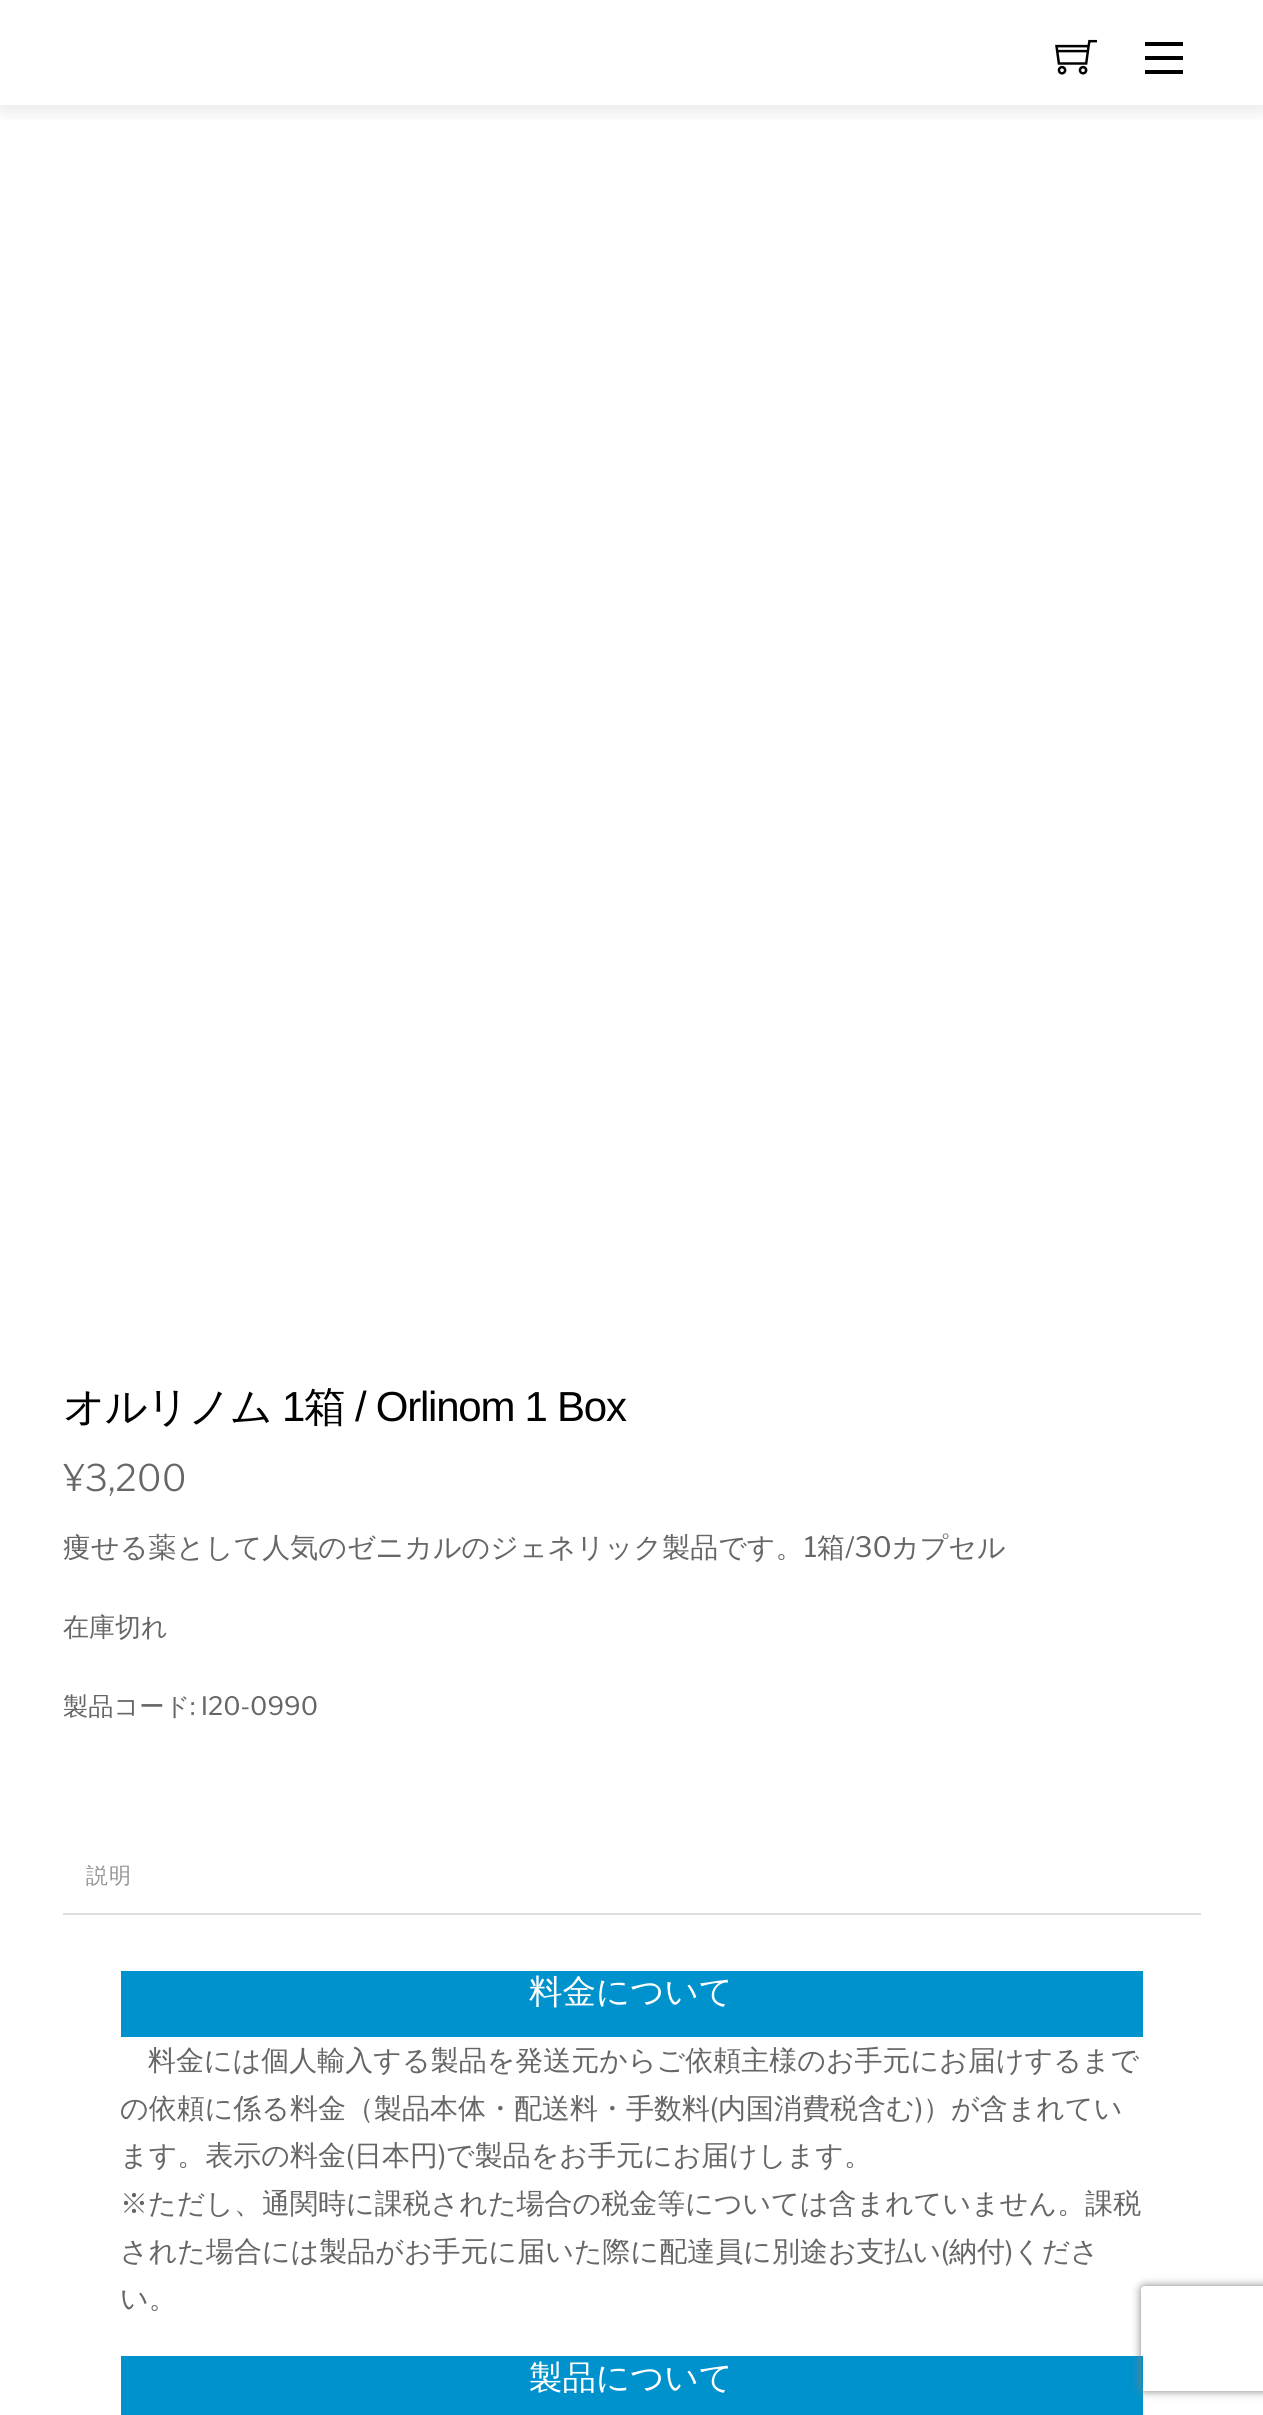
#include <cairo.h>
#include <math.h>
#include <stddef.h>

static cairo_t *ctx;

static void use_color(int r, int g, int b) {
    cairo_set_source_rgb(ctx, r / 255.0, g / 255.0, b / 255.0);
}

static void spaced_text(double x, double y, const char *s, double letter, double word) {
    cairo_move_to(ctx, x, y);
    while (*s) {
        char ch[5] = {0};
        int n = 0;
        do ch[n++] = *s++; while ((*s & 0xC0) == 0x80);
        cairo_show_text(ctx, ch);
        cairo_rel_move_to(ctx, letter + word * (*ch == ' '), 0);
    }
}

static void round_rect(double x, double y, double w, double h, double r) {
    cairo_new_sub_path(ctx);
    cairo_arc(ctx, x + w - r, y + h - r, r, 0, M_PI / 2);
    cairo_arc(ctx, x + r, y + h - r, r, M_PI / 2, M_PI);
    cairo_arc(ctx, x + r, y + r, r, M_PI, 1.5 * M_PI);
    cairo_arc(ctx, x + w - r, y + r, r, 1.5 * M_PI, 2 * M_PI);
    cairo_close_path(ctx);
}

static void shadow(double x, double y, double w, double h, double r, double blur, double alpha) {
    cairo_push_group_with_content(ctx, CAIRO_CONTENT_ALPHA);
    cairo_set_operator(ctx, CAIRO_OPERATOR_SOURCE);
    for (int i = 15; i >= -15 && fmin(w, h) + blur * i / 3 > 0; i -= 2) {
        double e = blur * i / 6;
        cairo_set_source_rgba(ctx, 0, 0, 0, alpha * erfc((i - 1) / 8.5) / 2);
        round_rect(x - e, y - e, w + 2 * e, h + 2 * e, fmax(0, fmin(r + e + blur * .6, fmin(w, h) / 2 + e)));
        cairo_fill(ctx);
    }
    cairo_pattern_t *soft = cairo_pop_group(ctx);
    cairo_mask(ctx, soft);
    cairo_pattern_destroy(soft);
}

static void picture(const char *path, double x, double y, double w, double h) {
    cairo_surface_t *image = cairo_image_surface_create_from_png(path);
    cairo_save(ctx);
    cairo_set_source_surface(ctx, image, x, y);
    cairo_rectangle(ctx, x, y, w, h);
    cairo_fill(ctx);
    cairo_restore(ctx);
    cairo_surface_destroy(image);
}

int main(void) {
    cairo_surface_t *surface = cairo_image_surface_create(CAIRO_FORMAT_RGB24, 1263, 2415);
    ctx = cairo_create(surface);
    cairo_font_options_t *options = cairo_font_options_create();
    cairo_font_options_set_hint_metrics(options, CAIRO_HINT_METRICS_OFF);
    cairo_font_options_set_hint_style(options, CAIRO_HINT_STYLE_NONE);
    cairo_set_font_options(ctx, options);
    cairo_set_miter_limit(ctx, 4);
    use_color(255, 255, 255);
    cairo_paint(ctx);
    cairo_save(ctx);
    cairo_rectangle(ctx, 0, 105, 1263, 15);
    cairo_clip(ctx);
    use_color(0, 0, 0);
    shadow(0, 2, 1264, 105, 0, 13, 0.12);
    cairo_restore(ctx);
    picture("img1.png", 1055, 39, 42, 36);
    use_color(0, 0, 0);
    cairo_rectangle(ctx, 1145, 42, 38, 4);
    cairo_fill(ctx);
    cairo_rectangle(ctx, 1145, 70, 38, 4);
    cairo_fill(ctx);
    cairo_rectangle(ctx, 1145, 56, 38, 4);
    cairo_fill(ctx);
    cairo_select_font_face(ctx, "WenQuanYi Zen Hei Medium", CAIRO_FONT_SLANT_NORMAL, CAIRO_FONT_WEIGHT_NORMAL);
    cairo_set_font_size(ctx, 42);
    spaced_text(63, 1421, "オルリノム", -1.25, 0);
    cairo_select_font_face(ctx, "Liberation Sans", CAIRO_FONT_SLANT_NORMAL, CAIRO_FONT_WEIGHT_NORMAL);
    spaced_text(282, 1421, "1", -1.25, 0);
    cairo_select_font_face(ctx, "WenQuanYi Zen Hei Medium", CAIRO_FONT_SLANT_NORMAL, CAIRO_FONT_WEIGHT_NORMAL);
    spaced_text(304, 1421, "箱", -1.25, 0);
    cairo_select_font_face(ctx, "Liberation Sans", CAIRO_FONT_SLANT_NORMAL, CAIRO_FONT_WEIGHT_NORMAL);
    spaced_text(355, 1421, "/ Orlinom 1 Box", -1.25, 0);
    cairo_select_font_face(ctx, "Libre Franklin Light", CAIRO_FONT_SLANT_NORMAL, CAIRO_FONT_WEIGHT_NORMAL);
    cairo_set_font_size(ctx, 36.5);
    use_color(102, 102, 102);
    cairo_move_to(ctx, 63, 1491);
    cairo_show_text(ctx, "¥3,200");
    cairo_select_font_face(ctx, "WenQuanYi Zen Hei Medium", CAIRO_FONT_SLANT_NORMAL, CAIRO_FONT_WEIGHT_NORMAL);
    cairo_set_font_size(ctx, 28);
    cairo_move_to(ctx, 63, 1557);
    cairo_show_text(ctx, "痩せる薬として人気のゼニカルのジェネリック製品です。");
    cairo_select_font_face(ctx, "Libre Franklin", CAIRO_FONT_SLANT_NORMAL, CAIRO_FONT_WEIGHT_NORMAL);
    cairo_move_to(ctx, 804, 1557);
    cairo_show_text(ctx, "1");
    cairo_select_font_face(ctx, "WenQuanYi Zen Hei Medium", CAIRO_FONT_SLANT_NORMAL, CAIRO_FONT_WEIGHT_NORMAL);
    cairo_move_to(ctx, 817, 1557);
    cairo_show_text(ctx, "箱");
    cairo_select_font_face(ctx, "Libre Franklin", CAIRO_FONT_SLANT_NORMAL, CAIRO_FONT_WEIGHT_NORMAL);
    cairo_move_to(ctx, 845, 1557);
    cairo_show_text(ctx, "/30");
    cairo_select_font_face(ctx, "WenQuanYi Zen Hei Medium", CAIRO_FONT_SLANT_NORMAL, CAIRO_FONT_WEIGHT_NORMAL);
    cairo_move_to(ctx, 891, 1557);
    cairo_show_text(ctx, "カプセル");
    cairo_set_font_size(ctx, 26);
    cairo_move_to(ctx, 63, 1636);
    cairo_show_text(ctx, "在庫切れ");
    cairo_set_font_size(ctx, 25.25);
    cairo_move_to(ctx, 63, 1715);
    cairo_show_text(ctx, "製品コード");
    cairo_select_font_face(ctx, "Libre Franklin", CAIRO_FONT_SLANT_NORMAL, CAIRO_FONT_WEIGHT_NORMAL);
    cairo_move_to(ctx, 190, 1715);
    cairo_show_text(ctx, ": I20-0990");
    cairo_select_font_face(ctx, "WenQuanYi Zen Hei Medium", CAIRO_FONT_SLANT_NORMAL, CAIRO_FONT_WEIGHT_NORMAL);
    cairo_set_font_size(ctx, 22);
    use_color(149, 149, 149);
    spaced_text(86, 1883, "説明", 1, 0);
    use_color(222, 222, 222);
    cairo_rectangle(ctx, 63, 1913, 1138, 2);
    cairo_fill(ctx);
    use_color(0, 146, 204);
    cairo_rectangle(ctx, 121, 1971, 1022, 66);
    cairo_fill(ctx);
    cairo_set_font_size(ctx, 33.5);
    use_color(255, 255, 255);
    cairo_move_to(ctx, 529, 2003);
    cairo_show_text(ctx, "料金について");
    cairo_set_font_size(ctx, 28);
    use_color(102, 102, 102);
    cairo_move_to(ctx, 148, 2070);
    cairo_show_text(ctx, "料金には個人輸入する製品を発送元からご依頼主様のお手元にお届けするまで");
    cairo_move_to(ctx, 120, 2118);
    cairo_show_text(ctx, "の依頼に係る料金（製品本体・配送料・手数料");
    cairo_select_font_face(ctx, "Libre Franklin", CAIRO_FONT_SLANT_NORMAL, CAIRO_FONT_WEIGHT_NORMAL);
    cairo_move_to(ctx, 710, 2118);
    cairo_show_text(ctx, "(");
    cairo_select_font_face(ctx, "WenQuanYi Zen Hei Medium", CAIRO_FONT_SLANT_NORMAL, CAIRO_FONT_WEIGHT_NORMAL);
    cairo_move_to(ctx, 718, 2118);
    cairo_show_text(ctx, "内国消費税含む");
    cairo_select_font_face(ctx, "Libre Franklin", CAIRO_FONT_SLANT_NORMAL, CAIRO_FONT_WEIGHT_NORMAL);
    cairo_move_to(ctx, 915, 2118);
    cairo_show_text(ctx, ")");
    cairo_select_font_face(ctx, "WenQuanYi Zen Hei Medium", CAIRO_FONT_SLANT_NORMAL, CAIRO_FONT_WEIGHT_NORMAL);
    cairo_move_to(ctx, 923, 2118);
    cairo_show_text(ctx, "）が含まれてい");
    cairo_move_to(ctx, 120, 2165);
    cairo_show_text(ctx, "ます。表示の料金");
    cairo_select_font_face(ctx, "Libre Franklin", CAIRO_FONT_SLANT_NORMAL, CAIRO_FONT_WEIGHT_NORMAL);
    cairo_move_to(ctx, 346, 2165);
    cairo_show_text(ctx, "(");
    cairo_select_font_face(ctx, "WenQuanYi Zen Hei Medium", CAIRO_FONT_SLANT_NORMAL, CAIRO_FONT_WEIGHT_NORMAL);
    cairo_move_to(ctx, 354, 2165);
    cairo_show_text(ctx, "日本円");
    cairo_select_font_face(ctx, "Libre Franklin", CAIRO_FONT_SLANT_NORMAL, CAIRO_FONT_WEIGHT_NORMAL);
    cairo_move_to(ctx, 438, 2165);
    cairo_show_text(ctx, ")");
    cairo_select_font_face(ctx, "WenQuanYi Zen Hei Medium", CAIRO_FONT_SLANT_NORMAL, CAIRO_FONT_WEIGHT_NORMAL);
    cairo_move_to(ctx, 446, 2165);
    cairo_show_text(ctx, "で製品をお手元にお届けします。");
    cairo_move_to(ctx, 120, 2213);
    cairo_show_text(ctx, "※ただし、通関時に課税された場合の税金等については含まれていません。課税");
    cairo_move_to(ctx, 120, 2261);
    cairo_show_text(ctx, "された場合には製品がお手元に届いた際に配達員に別途お支払い");
    cairo_select_font_face(ctx, "Libre Franklin", CAIRO_FONT_SLANT_NORMAL, CAIRO_FONT_WEIGHT_NORMAL);
    cairo_move_to(ctx, 941, 2261);
    cairo_show_text(ctx, "(");
    cairo_select_font_face(ctx, "WenQuanYi Zen Hei Medium", CAIRO_FONT_SLANT_NORMAL, CAIRO_FONT_WEIGHT_NORMAL);
    cairo_move_to(ctx, 949, 2261);
    cairo_show_text(ctx, "納付");
    cairo_select_font_face(ctx, "Libre Franklin", CAIRO_FONT_SLANT_NORMAL, CAIRO_FONT_WEIGHT_NORMAL);
    cairo_move_to(ctx, 1005, 2261);
    cairo_show_text(ctx, ")");
    cairo_select_font_face(ctx, "WenQuanYi Zen Hei Medium", CAIRO_FONT_SLANT_NORMAL, CAIRO_FONT_WEIGHT_NORMAL);
    cairo_move_to(ctx, 1013, 2261);
    cairo_show_text(ctx, "くださ");
    cairo_move_to(ctx, 120, 2308);
    cairo_show_text(ctx, "い。");
    use_color(0, 146, 204);
    cairo_rectangle(ctx, 121, 2356, 1022, 59);
    cairo_fill(ctx);
    cairo_set_font_size(ctx, 33.5);
    use_color(255, 255, 255);
    cairo_move_to(ctx, 529, 2389);
    cairo_show_text(ctx, "製品について");
    cairo_save(ctx);
    cairo_set_fill_rule(ctx, CAIRO_FILL_RULE_EVEN_ODD);
    cairo_new_path(ctx);
    cairo_move_to(ctx, 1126, 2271);
    cairo_line_to(ctx, 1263, 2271);
    cairo_line_to(ctx, 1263, 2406);
    cairo_line_to(ctx, 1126, 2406);
    cairo_close_path(ctx);
    cairo_move_to(ctx, 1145, 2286);
    cairo_line_to(ctx, 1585, 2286);
    cairo_curve_to(ctx, 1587, 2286, 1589, 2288, 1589, 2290);
    cairo_line_to(ctx, 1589, 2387);
    cairo_curve_to(ctx, 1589, 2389, 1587, 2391, 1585, 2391);
    cairo_line_to(ctx, 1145, 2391);
    cairo_curve_to(ctx, 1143, 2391, 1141, 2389, 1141, 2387);
    cairo_line_to(ctx, 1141, 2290);
    cairo_curve_to(ctx, 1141, 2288, 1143, 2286, 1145, 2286);
    cairo_close_path(ctx);
    cairo_clip(ctx);
    use_color(128, 128, 128);
    shadow(1141, 2286, 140, 105, 4, 4.5, 1);
    cairo_restore(ctx);
    cairo_surface_write_to_png(surface, "result.png");
    cairo_font_options_destroy(options);
    cairo_destroy(ctx);
    cairo_surface_destroy(surface);
    return 0;
}
